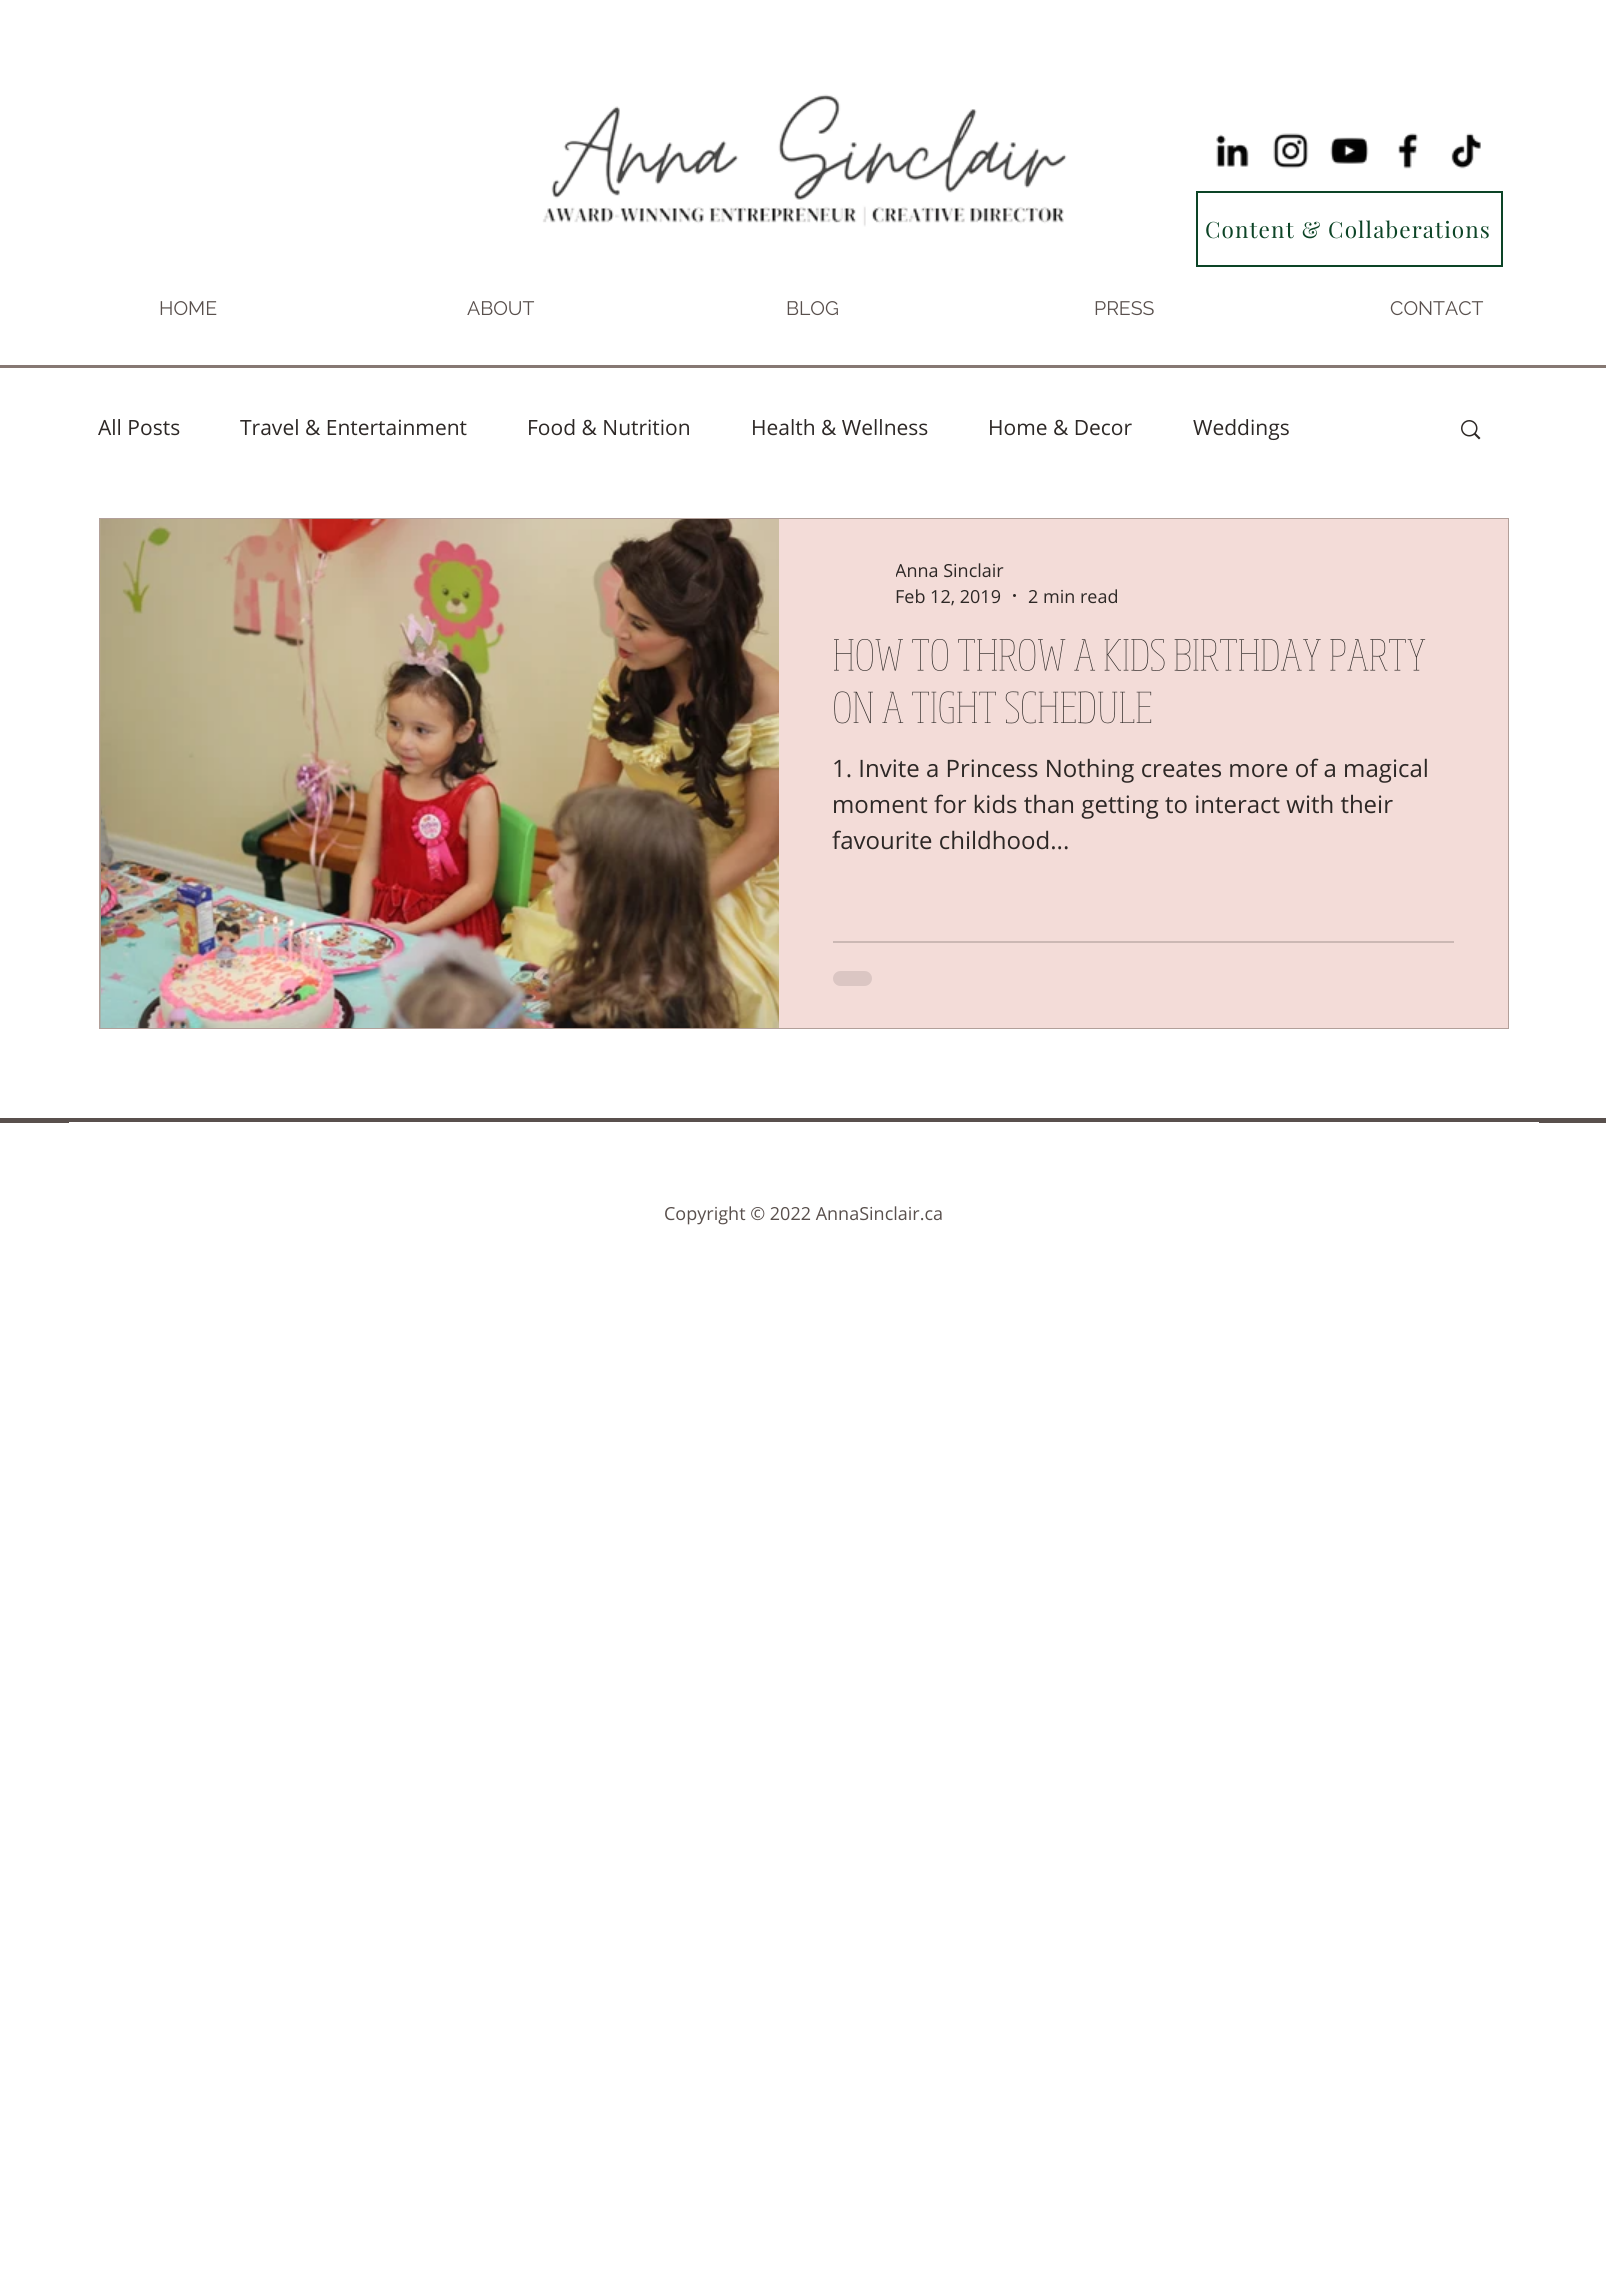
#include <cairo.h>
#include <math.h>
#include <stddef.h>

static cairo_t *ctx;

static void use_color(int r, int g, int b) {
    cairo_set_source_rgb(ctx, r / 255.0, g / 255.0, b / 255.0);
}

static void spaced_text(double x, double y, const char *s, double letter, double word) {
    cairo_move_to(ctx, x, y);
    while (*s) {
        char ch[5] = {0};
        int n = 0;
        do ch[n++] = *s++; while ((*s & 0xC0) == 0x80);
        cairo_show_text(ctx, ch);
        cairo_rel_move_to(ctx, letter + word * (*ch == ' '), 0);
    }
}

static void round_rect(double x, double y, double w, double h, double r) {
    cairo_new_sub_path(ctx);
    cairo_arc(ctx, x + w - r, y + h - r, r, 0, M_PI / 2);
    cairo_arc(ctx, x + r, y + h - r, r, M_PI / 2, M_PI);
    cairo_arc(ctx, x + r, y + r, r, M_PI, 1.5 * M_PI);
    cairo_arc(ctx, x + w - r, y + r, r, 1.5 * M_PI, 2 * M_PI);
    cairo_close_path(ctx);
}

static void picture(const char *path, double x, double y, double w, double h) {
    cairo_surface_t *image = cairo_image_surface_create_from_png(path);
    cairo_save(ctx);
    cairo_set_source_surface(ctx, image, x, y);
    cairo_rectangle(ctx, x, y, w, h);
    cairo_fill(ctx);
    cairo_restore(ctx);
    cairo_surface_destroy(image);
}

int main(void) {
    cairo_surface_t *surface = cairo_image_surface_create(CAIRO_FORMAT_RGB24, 1606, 2288);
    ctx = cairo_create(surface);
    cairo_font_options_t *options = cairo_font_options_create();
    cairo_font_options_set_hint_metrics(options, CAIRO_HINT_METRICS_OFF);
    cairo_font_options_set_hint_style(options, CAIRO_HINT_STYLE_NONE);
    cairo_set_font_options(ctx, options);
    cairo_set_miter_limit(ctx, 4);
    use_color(255, 255, 255);
    cairo_paint(ctx);
    picture("img1.png", 542, 94, 525, 133);
    picture("img2.png", 1216, 134, 33, 33);
    picture("img3.png", 1273, 133, 36, 36);
    picture("img4.png", 1330, 137, 39, 27);
    picture("img5.png", 1398, 133, 20, 36);
    picture("img6.png", 1451, 133, 30, 36);
    cairo_rectangle(ctx, 1197, 192, 305, 74);
    use_color(12, 68, 38);
    cairo_stroke(ctx);
    cairo_select_font_face(ctx, "Playfair Display", CAIRO_FONT_SLANT_NORMAL, CAIRO_FONT_WEIGHT_NORMAL);
    cairo_set_font_size(ctx, 22.5);
    spaced_text(1205, 238, "Content & Collaberations", 1.1, 0);
    cairo_select_font_face(ctx, "Raleway", CAIRO_FONT_SLANT_NORMAL, CAIRO_FONT_WEIGHT_NORMAL);
    cairo_set_font_size(ctx, 19.5);
    use_color(89, 80, 77);
    cairo_move_to(ctx, 159, 315);
    cairo_show_text(ctx, "HOME");
    cairo_move_to(ctx, 467, 315);
    cairo_show_text(ctx, "ABOUT");
    cairo_move_to(ctx, 786, 315);
    cairo_show_text(ctx, "BLOG");
    cairo_move_to(ctx, 1094, 315);
    cairo_show_text(ctx, "PRESS");
    cairo_move_to(ctx, 1390, 315);
    cairo_show_text(ctx, "CONTACT");
    use_color(134, 120, 115);
    cairo_rectangle(ctx, 0, 365, 1606, 3);
    cairo_fill(ctx);
    cairo_select_font_face(ctx, "Open Sans", CAIRO_FONT_SLANT_NORMAL, CAIRO_FONT_WEIGHT_NORMAL);
    cairo_set_font_size(ctx, 21);
    use_color(45, 40, 38);
    cairo_move_to(ctx, 98, 435);
    cairo_show_text(ctx, "All Posts");
    cairo_move_to(ctx, 240, 435);
    cairo_show_text(ctx, "Travel & Entertainment");
    cairo_move_to(ctx, 527, 435);
    cairo_show_text(ctx, "Food & Nutrition");
    cairo_move_to(ctx, 751, 435);
    cairo_show_text(ctx, "Health & Wellness");
    cairo_move_to(ctx, 988, 435);
    cairo_show_text(ctx, "Home & Decor");
    cairo_move_to(ctx, 1193, 435);
    cairo_show_text(ctx, "Weddings");
    picture("img7.png", 1461, 420, 20, 20);
    cairo_rectangle(ctx, 100, 519, 1408, 509);
    use_color(178, 160, 154);
    cairo_stroke(ctx);
    picture("img8.png", 100, 519, 1, 509);
    picture("img9.png", 101, 519, 678, 509);
    use_color(243, 220, 216);
    cairo_rectangle(ctx, 779, 519, 729, 509);
    cairo_fill(ctx);
    cairo_save(ctx);
    cairo_rectangle(ctx, 896, 558, 108, 24);
    cairo_clip(ctx);
    cairo_set_font_size(ctx, 18);
    use_color(45, 40, 38);
    cairo_move_to(ctx, 895, 577);
    cairo_show_text(ctx, "Anna Sinclair");
    cairo_restore(ctx);
    cairo_set_font_size(ctx, 18);
    use_color(45, 40, 38);
    cairo_move_to(ctx, 895, 603);
    cairo_show_text(ctx, "Feb 12, 2019");
    cairo_new_path(ctx);
    cairo_arc(ctx, 1014.5, 595.5, 1.5, 0, 2 * M_PI);
    cairo_fill(ctx);
    cairo_move_to(ctx, 1028, 603);
    cairo_show_text(ctx, "2 min read");
    picture("img10.png", 834, 638, 592, 33);
    picture("img11.png", 834, 691, 318, 33);
    cairo_set_font_size(ctx, 24);
    cairo_move_to(ctx, 832, 777);
    cairo_show_text(ctx, "1. Invite a Princess Nothing creates more of a magical");
    cairo_move_to(ctx, 832, 813);
    cairo_show_text(ctx, "moment for kids than getting to interact with their");
    cairo_move_to(ctx, 832, 849);
    cairo_show_text(ctx, "favourite childhood...");
    use_color(203, 184, 180);
    cairo_rectangle(ctx, 833, 941, 621, 2);
    cairo_fill(ctx);
    use_color(219, 198, 195);
    round_rect(833, 971, 39, 15, 7.5);
    cairo_fill(ctx);
    use_color(89, 80, 77);
    cairo_rectangle(ctx, 0, 1118, 1606, 5);
    cairo_fill(ctx);
    use_color(255, 255, 255);
    cairo_rectangle(ctx, 69, 1122, 1470, 1);
    cairo_fill(ctx);
    cairo_set_font_size(ctx, 18);
    use_color(89, 80, 77);
    cairo_move_to(ctx, 664, 1220);
    cairo_show_text(ctx, "Copyright © 2022 AnnaSinclair.ca");
    cairo_surface_write_to_png(surface, "result.png");
    cairo_font_options_destroy(options);
    cairo_destroy(ctx);
    cairo_surface_destroy(surface);
    return 0;
}
